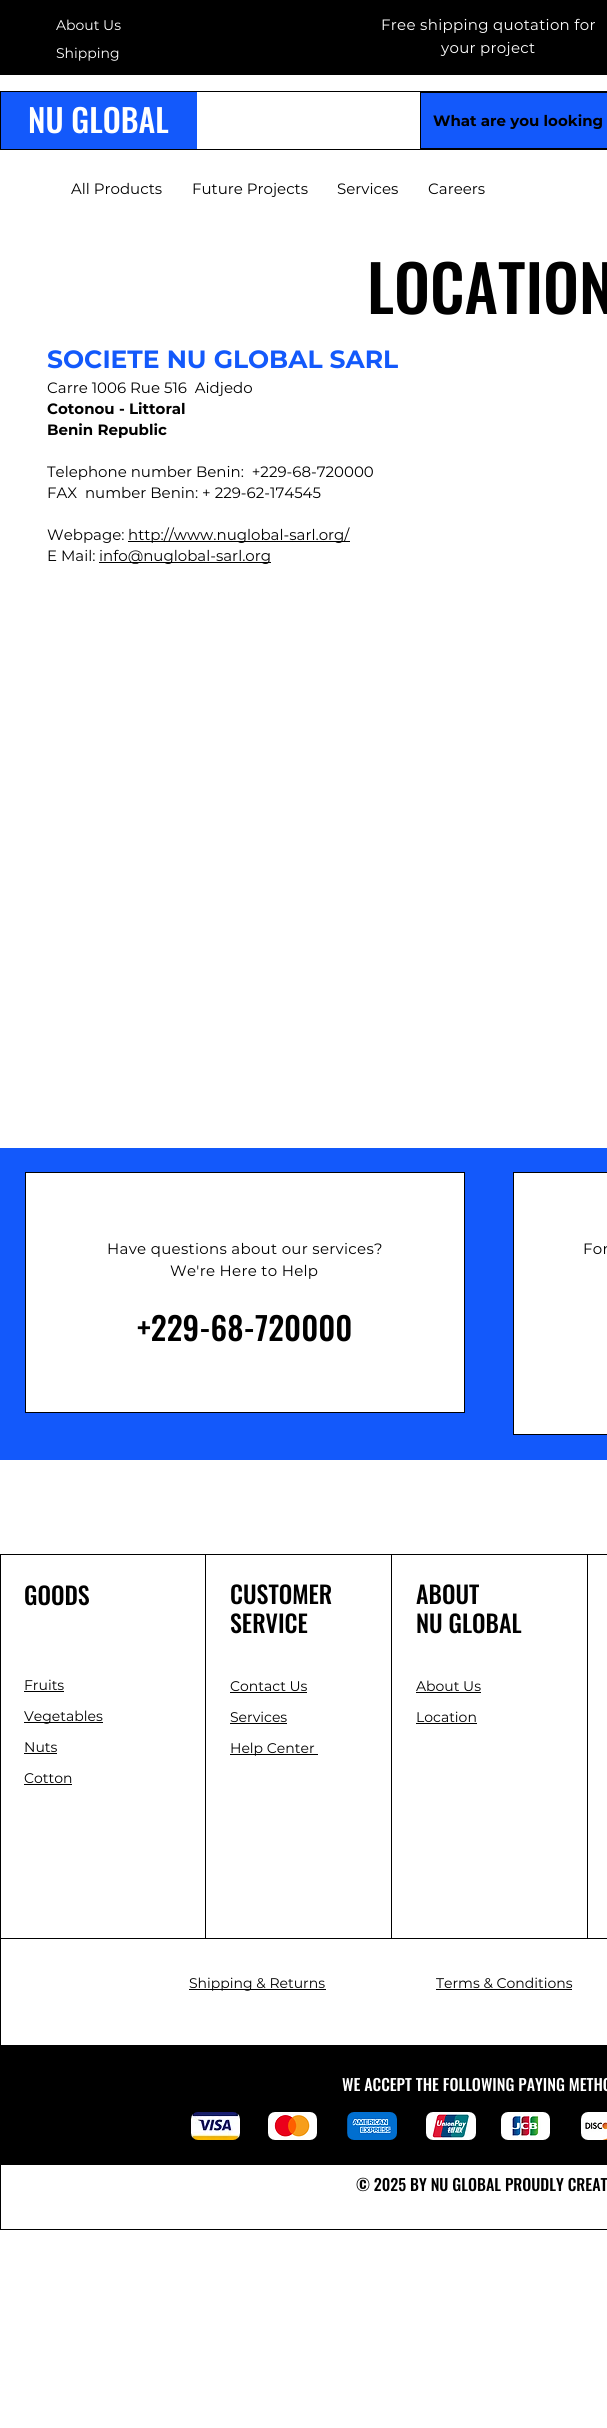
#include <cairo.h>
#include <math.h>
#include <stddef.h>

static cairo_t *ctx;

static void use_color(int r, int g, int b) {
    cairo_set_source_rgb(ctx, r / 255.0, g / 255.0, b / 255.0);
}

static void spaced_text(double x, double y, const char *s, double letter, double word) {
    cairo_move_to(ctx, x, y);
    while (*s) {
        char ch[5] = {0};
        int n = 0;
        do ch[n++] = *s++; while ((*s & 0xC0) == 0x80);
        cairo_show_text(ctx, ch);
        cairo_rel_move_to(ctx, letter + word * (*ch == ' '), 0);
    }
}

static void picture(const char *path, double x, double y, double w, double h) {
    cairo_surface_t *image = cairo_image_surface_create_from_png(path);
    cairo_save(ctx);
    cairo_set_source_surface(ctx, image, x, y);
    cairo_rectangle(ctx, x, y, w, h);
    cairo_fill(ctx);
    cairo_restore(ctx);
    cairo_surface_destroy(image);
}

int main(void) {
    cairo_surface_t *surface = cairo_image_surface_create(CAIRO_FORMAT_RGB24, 607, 2428);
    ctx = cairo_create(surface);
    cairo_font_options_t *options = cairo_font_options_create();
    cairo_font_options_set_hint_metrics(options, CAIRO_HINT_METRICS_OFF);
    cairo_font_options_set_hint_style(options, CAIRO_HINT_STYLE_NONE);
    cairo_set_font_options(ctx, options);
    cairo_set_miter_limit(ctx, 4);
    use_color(255, 255, 255);
    cairo_paint(ctx);
    use_color(0, 0, 0);
    cairo_rectangle(ctx, 0, 0, 607, 75);
    cairo_fill(ctx);
    cairo_select_font_face(ctx, "Montserrat", CAIRO_FONT_SLANT_NORMAL, CAIRO_FONT_WEIGHT_NORMAL);
    cairo_set_font_size(ctx, 14);
    use_color(255, 255, 255);
    cairo_move_to(ctx, 56, 30);
    cairo_show_text(ctx, "About Us");
    cairo_move_to(ctx, 56, 58);
    cairo_show_text(ctx, "Shipping");
    cairo_set_font_size(ctx, 15);
    spaced_text(381, 30, "Free shipping quotation for", 0.3, 0);
    spaced_text(441, 53, "your project", 0.3, 0);
    use_color(0, 0, 0);
    cairo_rectangle(ctx, 0, 91, 607, 59);
    cairo_fill(ctx);
    use_color(19, 89, 251);
    cairo_rectangle(ctx, 1, 92, 196, 57);
    cairo_fill(ctx);
    cairo_select_font_face(ctx, "Oswald Medium", CAIRO_FONT_SLANT_NORMAL, CAIRO_FONT_WEIGHT_NORMAL);
    cairo_set_font_size(ctx, 32);
    use_color(255, 255, 255);
    cairo_move_to(ctx, 28, 133);
    cairo_show_text(ctx, "NU GLOBAL");
    cairo_rectangle(ctx, 197, 92, 223, 57);
    cairo_fill(ctx);
    use_color(19, 89, 251);
    cairo_rectangle(ctx, 421, 93, 186, 55);
    cairo_fill(ctx);
    cairo_select_font_face(ctx, "Montserrat", CAIRO_FONT_SLANT_NORMAL, CAIRO_FONT_WEIGHT_BOLD);
    cairo_set_font_size(ctx, 15);
    use_color(0, 0, 0);
    cairo_move_to(ctx, 433, 126);
    cairo_show_text(ctx, "What are you looking");
    cairo_select_font_face(ctx, "Montserrat", CAIRO_FONT_SLANT_NORMAL, CAIRO_FONT_WEIGHT_NORMAL);
    cairo_move_to(ctx, 71, 194);
    cairo_show_text(ctx, "All Products");
    cairo_move_to(ctx, 192, 194);
    cairo_show_text(ctx, "Future Projects");
    cairo_move_to(ctx, 337, 194);
    cairo_show_text(ctx, "Services");
    cairo_move_to(ctx, 428, 194);
    cairo_show_text(ctx, "Careers");
    cairo_select_font_face(ctx, "Oswald Medium", CAIRO_FONT_SLANT_NORMAL, CAIRO_FONT_WEIGHT_NORMAL);
    cairo_set_font_size(ctx, 64);
    cairo_move_to(ctx, 367, 314);
    cairo_show_text(ctx, "LOCATION");
    cairo_select_font_face(ctx, "Montserrat", CAIRO_FONT_SLANT_NORMAL, CAIRO_FONT_WEIGHT_BOLD);
    cairo_set_font_size(ctx, 25);
    use_color(19, 89, 251);
    cairo_move_to(ctx, 47, 368);
    cairo_show_text(ctx, "SOCIETE NU GLOBAL SARL");
    cairo_select_font_face(ctx, "Montserrat", CAIRO_FONT_SLANT_NORMAL, CAIRO_FONT_WEIGHT_NORMAL);
    cairo_set_font_size(ctx, 15);
    use_color(0, 0, 0);
    cairo_move_to(ctx, 47, 393);
    cairo_show_text(ctx, "Carre 1006 Rue 516  Aidjedo");
    cairo_select_font_face(ctx, "Montserrat", CAIRO_FONT_SLANT_NORMAL, CAIRO_FONT_WEIGHT_BOLD);
    cairo_move_to(ctx, 47, 414);
    cairo_show_text(ctx, "Cotonou - Littoral");
    cairo_move_to(ctx, 47, 435);
    cairo_show_text(ctx, "Benin Republic");
    cairo_select_font_face(ctx, "Montserrat", CAIRO_FONT_SLANT_NORMAL, CAIRO_FONT_WEIGHT_NORMAL);
    cairo_move_to(ctx, 47, 477);
    cairo_show_text(ctx, "Telephone number Benin:  +229-68-720000");
    cairo_move_to(ctx, 47, 498);
    cairo_show_text(ctx, "FAX  number Benin: + 229-62-174545");
    cairo_move_to(ctx, 47, 540);
    cairo_show_text(ctx, "Webpage:");
    cairo_rectangle(ctx, 128, 541, 222, 1);
    cairo_fill(ctx);
    cairo_move_to(ctx, 128, 540);
    cairo_show_text(ctx, "http://www.nuglobal-sarl.org/");
    cairo_move_to(ctx, 47, 561);
    cairo_show_text(ctx, "E Mail:");
    cairo_rectangle(ctx, 99, 562, 172, 1);
    cairo_fill(ctx);
    cairo_move_to(ctx, 99, 561);
    cairo_show_text(ctx, "info@nuglobal-sarl.org");
    use_color(19, 89, 251);
    cairo_rectangle(ctx, 0, 1148, 607, 312);
    cairo_fill(ctx);
    use_color(255, 255, 255);
    cairo_rectangle(ctx, 25.5, 1172.5, 439, 240);
    cairo_fill_preserve(ctx);
    use_color(0, 0, 0);
    cairo_set_line_width(ctx, 1);
    cairo_stroke(ctx);
    spaced_text(107, 1254, "Have questions about our services?", 0.3, 0);
    spaced_text(170, 1276, "We're Here to Help", 0.3, 0);
    cairo_select_font_face(ctx, "Oswald Medium", CAIRO_FONT_SLANT_NORMAL, CAIRO_FONT_WEIGHT_NORMAL);
    cairo_set_font_size(ctx, 32);
    cairo_move_to(ctx, 137, 1341);
    cairo_show_text(ctx, "+229-68-720000");
    use_color(255, 255, 255);
    cairo_rectangle(ctx, 513.5, 1172.5, 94, 262);
    cairo_fill_preserve(ctx);
    use_color(0, 0, 0);
    cairo_stroke(ctx);
    cairo_select_font_face(ctx, "Montserrat", CAIRO_FONT_SLANT_NORMAL, CAIRO_FONT_WEIGHT_NORMAL);
    cairo_set_font_size(ctx, 15);
    spaced_text(583, 1254, "For", 0.3, 0);
    cairo_rectangle(ctx, 0, 1554, 607, 676);
    cairo_fill(ctx);
    use_color(255, 255, 255);
    cairo_rectangle(ctx, 1, 1555, 204, 383);
    cairo_fill(ctx);
    cairo_select_font_face(ctx, "Oswald Medium", CAIRO_FONT_SLANT_NORMAL, CAIRO_FONT_WEIGHT_NORMAL);
    cairo_set_font_size(ctx, 24);
    use_color(0, 0, 0);
    cairo_move_to(ctx, 24, 1605);
    cairo_show_text(ctx, "GOODS");
    cairo_select_font_face(ctx, "Montserrat", CAIRO_FONT_SLANT_NORMAL, CAIRO_FONT_WEIGHT_NORMAL);
    cairo_set_font_size(ctx, 14);
    cairo_move_to(ctx, 24, 1690);
    cairo_show_text(ctx, "Fruits");
    cairo_rectangle(ctx, 24, 1691, 40, 1);
    cairo_fill(ctx);
    cairo_rectangle(ctx, 24, 1722, 79, 1);
    cairo_fill(ctx);
    cairo_move_to(ctx, 24, 1721);
    cairo_show_text(ctx, "Vegetables");
    cairo_move_to(ctx, 24, 1752);
    cairo_show_text(ctx, "Nuts");
    cairo_rectangle(ctx, 24, 1753, 33, 1);
    cairo_fill(ctx);
    cairo_move_to(ctx, 24, 1783);
    cairo_show_text(ctx, "Cotton");
    cairo_rectangle(ctx, 24, 1784, 48, 1);
    cairo_fill(ctx);
    use_color(255, 255, 255);
    cairo_rectangle(ctx, 206, 1555, 185, 383);
    cairo_fill(ctx);
    cairo_select_font_face(ctx, "Oswald Medium", CAIRO_FONT_SLANT_NORMAL, CAIRO_FONT_WEIGHT_NORMAL);
    cairo_set_font_size(ctx, 24);
    use_color(0, 0, 0);
    cairo_move_to(ctx, 230, 1604);
    cairo_show_text(ctx, "CUSTOMER");
    cairo_move_to(ctx, 230, 1633);
    cairo_show_text(ctx, "SERVICE");
    cairo_select_font_face(ctx, "Montserrat", CAIRO_FONT_SLANT_NORMAL, CAIRO_FONT_WEIGHT_NORMAL);
    cairo_set_font_size(ctx, 14);
    cairo_move_to(ctx, 230, 1691);
    cairo_show_text(ctx, "Contact Us");
    cairo_rectangle(ctx, 230, 1692, 77, 1);
    cairo_fill(ctx);
    cairo_move_to(ctx, 230, 1722);
    cairo_show_text(ctx, "Services");
    cairo_rectangle(ctx, 230, 1723, 57, 1);
    cairo_fill(ctx);
    cairo_rectangle(ctx, 230, 1754, 88, 1);
    cairo_fill(ctx);
    cairo_move_to(ctx, 230, 1753);
    cairo_show_text(ctx, "Help Center");
    use_color(255, 255, 255);
    cairo_rectangle(ctx, 392, 1555, 195, 383);
    cairo_fill(ctx);
    cairo_select_font_face(ctx, "Oswald Medium", CAIRO_FONT_SLANT_NORMAL, CAIRO_FONT_WEIGHT_NORMAL);
    cairo_set_font_size(ctx, 24);
    use_color(0, 0, 0);
    cairo_move_to(ctx, 416, 1604);
    cairo_show_text(ctx, "ABOUT");
    cairo_move_to(ctx, 416, 1633);
    cairo_show_text(ctx, "NU GLOBAL");
    cairo_select_font_face(ctx, "Montserrat", CAIRO_FONT_SLANT_NORMAL, CAIRO_FONT_WEIGHT_NORMAL);
    cairo_set_font_size(ctx, 14);
    cairo_move_to(ctx, 416, 1691);
    cairo_show_text(ctx, "About Us");
    cairo_rectangle(ctx, 416, 1692, 65, 1);
    cairo_fill(ctx);
    cairo_move_to(ctx, 416, 1722);
    cairo_show_text(ctx, "Location");
    cairo_rectangle(ctx, 416, 1723, 61, 1);
    cairo_fill(ctx);
    use_color(255, 255, 255);
    cairo_rectangle(ctx, 588, 1555, 19, 383);
    cairo_fill(ctx);
    cairo_rectangle(ctx, 1, 1939, 606, 106);
    cairo_fill(ctx);
    use_color(0, 0, 0);
    cairo_rectangle(ctx, 189, 1989, 137, 1);
    cairo_fill(ctx);
    cairo_move_to(ctx, 189, 1988);
    cairo_show_text(ctx, "Shipping & Returns");
    cairo_move_to(ctx, 436, 1988);
    cairo_show_text(ctx, "Terms & Conditions");
    cairo_rectangle(ctx, 436, 1989, 136, 1);
    cairo_fill(ctx);
    cairo_select_font_face(ctx, "Oswald Medium", CAIRO_FONT_SLANT_NORMAL, CAIRO_FONT_WEIGHT_NORMAL);
    cairo_set_font_size(ctx, 16);
    use_color(255, 255, 255);
    cairo_move_to(ctx, 342, 2091);
    cairo_show_text(ctx, "WE ACCEPT THE FOLLOWING PAYING METHO");
    picture("img1.png", 191, 2112, 49, 28);
    picture("img2.png", 268, 2112, 49, 28);
    picture("img3.png", 347, 2112, 50, 28);
    picture("img4.png", 426, 2112, 50, 28);
    picture("img5.png", 501, 2112, 49, 28);
    picture("img6.png", 581, 2112, 26, 28);
    cairo_rectangle(ctx, 1, 2165, 606, 64);
    cairo_fill(ctx);
    use_color(0, 0, 0);
    cairo_move_to(ctx, 356, 2191);
    cairo_show_text(ctx, "© 2025 BY NU GLOBAL PROUDLY CREAT");
    cairo_surface_write_to_png(surface, "result.png");
    cairo_font_options_destroy(options);
    cairo_destroy(ctx);
    cairo_surface_destroy(surface);
    return 0;
}
